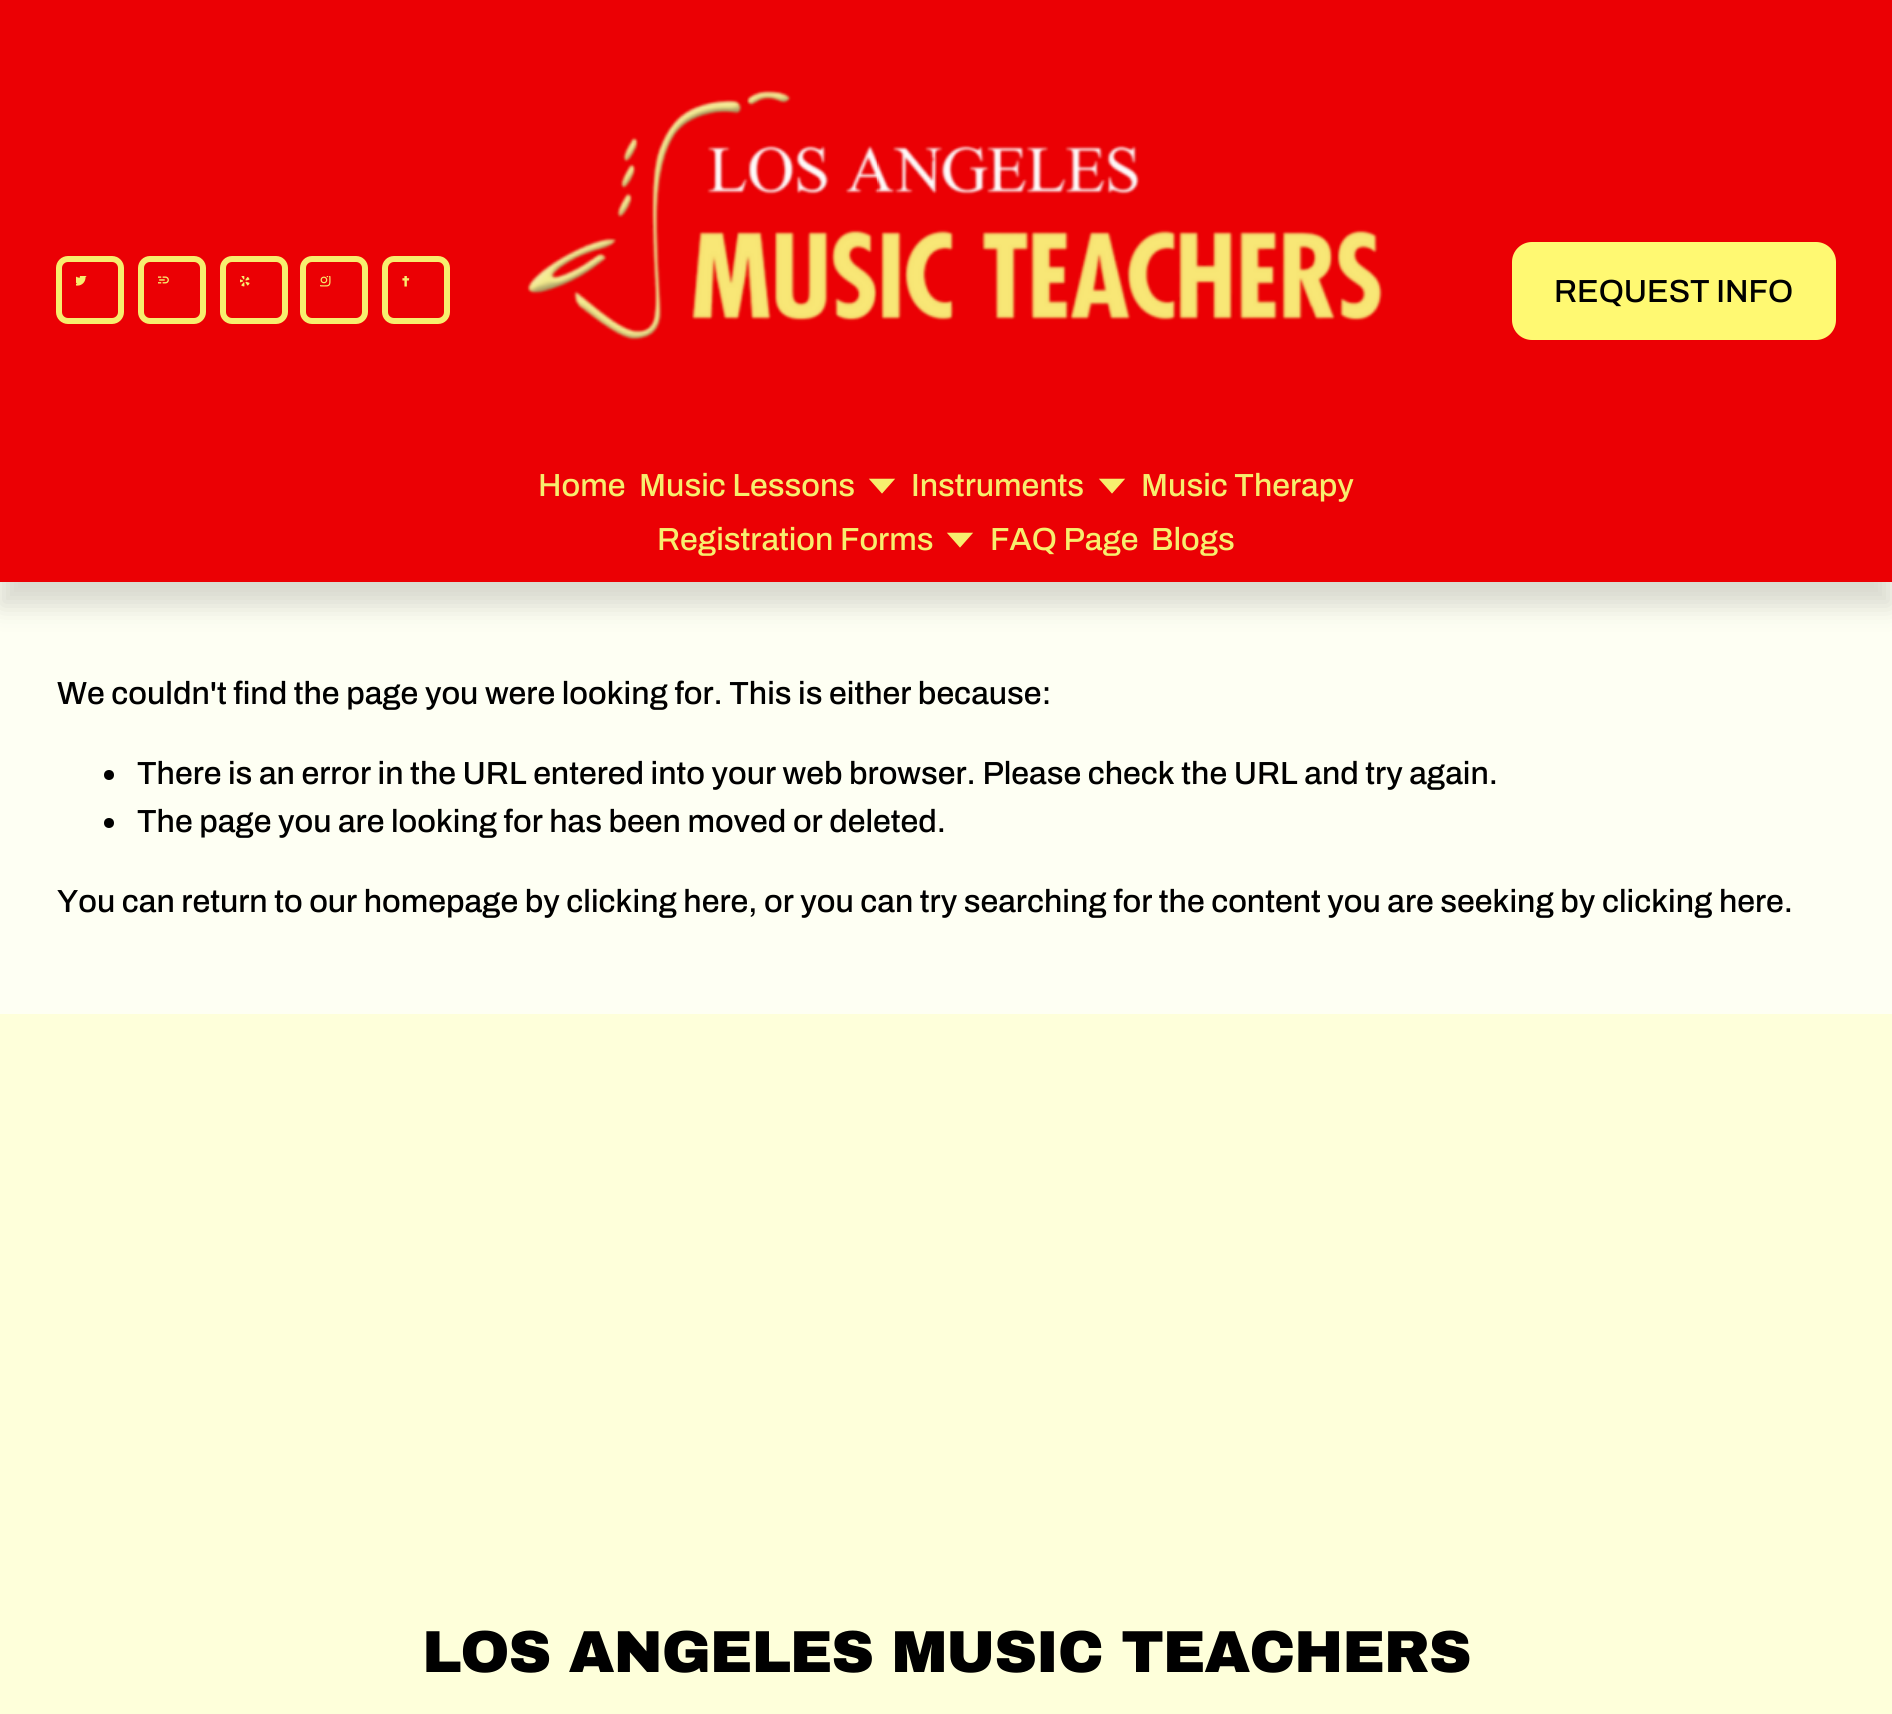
#include <cairo.h>
#include <math.h>
#include <stddef.h>

static cairo_t *ctx;

static void use_color(int r, int g, int b) {
    cairo_set_source_rgb(ctx, r / 255.0, g / 255.0, b / 255.0);
}

static void spaced_text(double x, double y, const char *s, double letter, double word) {
    cairo_move_to(ctx, x, y);
    while (*s) {
        char ch[5] = {0};
        int n = 0;
        do ch[n++] = *s++; while ((*s & 0xC0) == 0x80);
        cairo_show_text(ctx, ch);
        cairo_rel_move_to(ctx, letter + word * (*ch == ' '), 0);
    }
}

static void round_rect(double x, double y, double w, double h, double r) {
    cairo_new_sub_path(ctx);
    cairo_arc(ctx, x + w - r, y + h - r, r, 0, M_PI / 2);
    cairo_arc(ctx, x + r, y + h - r, r, M_PI / 2, M_PI);
    cairo_arc(ctx, x + r, y + r, r, M_PI, 1.5 * M_PI);
    cairo_arc(ctx, x + w - r, y + r, r, 1.5 * M_PI, 2 * M_PI);
    cairo_close_path(ctx);
}

static void shadow(double x, double y, double w, double h, double r, double blur, double alpha) {
    cairo_push_group_with_content(ctx, CAIRO_CONTENT_ALPHA);
    cairo_set_operator(ctx, CAIRO_OPERATOR_SOURCE);
    for (int i = 15; i >= -15 && fmin(w, h) + blur * i / 3 > 0; i -= 2) {
        double e = blur * i / 6;
        cairo_set_source_rgba(ctx, 0, 0, 0, alpha * erfc((i - 1) / 8.5) / 2);
        round_rect(x - e, y - e, w + 2 * e, h + 2 * e, fmax(0, fmin(r + e + blur * .6, fmin(w, h) / 2 + e)));
        cairo_fill(ctx);
    }
    cairo_pattern_t *soft = cairo_pop_group(ctx);
    cairo_mask(ctx, soft);
    cairo_pattern_destroy(soft);
}

static void picture(const char *path, double x, double y, double w, double h) {
    cairo_surface_t *image = cairo_image_surface_create_from_png(path);
    cairo_save(ctx);
    cairo_set_source_surface(ctx, image, x, y);
    cairo_rectangle(ctx, x, y, w, h);
    cairo_fill(ctx);
    cairo_restore(ctx);
    cairo_surface_destroy(image);
}

int main(void) {
    cairo_surface_t *surface = cairo_image_surface_create(CAIRO_FORMAT_RGB24, 1892, 1714);
    ctx = cairo_create(surface);
    cairo_font_options_t *options = cairo_font_options_create();
    cairo_font_options_set_hint_metrics(options, CAIRO_HINT_METRICS_OFF);
    cairo_font_options_set_hint_style(options, CAIRO_HINT_STYLE_NONE);
    cairo_set_font_options(ctx, options);
    cairo_set_miter_limit(ctx, 4);
    use_color(254, 255, 243);
    cairo_paint(ctx);
    use_color(216, 217, 207);
    shadow(0, 24, 1892, 582, 0, 12, 1);
    use_color(235, 0, 4);
    cairo_rectangle(ctx, 0, 0, 1892, 582);
    cairo_fill(ctx);
    round_rect(59, 259, 62, 62, 9);
    use_color(247, 238, 110);
    cairo_set_line_width(ctx, 6);
    cairo_stroke(ctx);
    picture("img1.png", 76, 276, 11, 10);
    round_rect(141, 259, 62, 62, 9);
    cairo_stroke(ctx);
    picture("img2.png", 158, 276, 11, 8);
    round_rect(223, 259, 62, 62, 9);
    cairo_stroke(ctx);
    picture("img3.png", 240, 276, 10, 11);
    round_rect(303, 259, 62, 62, 9);
    cairo_stroke(ctx);
    picture("img4.png", 320, 276, 11, 11);
    round_rect(385, 259, 62, 62, 9);
    cairo_stroke(ctx);
    picture("img5.png", 402, 276, 8, 11);
    use_color(255, 249, 114);
    round_rect(1512, 242, 324, 98, 20);
    cairo_fill(ctx);
    cairo_select_font_face(ctx, "Archivo Medium", CAIRO_FONT_SLANT_NORMAL, CAIRO_FONT_WEIGHT_NORMAL);
    cairo_set_font_size(ctx, 32);
    use_color(0, 0, 0);
    cairo_move_to(ctx, 1554, 302);
    cairo_show_text(ctx, "REQUEST INFO");
    picture("img6.png", 526, 90, 857, 251);
    use_color(247, 238, 110);
    cairo_move_to(ctx, 538, 496);
    cairo_show_text(ctx, "Home");
    cairo_move_to(ctx, 639, 496);
    cairo_show_text(ctx, "Music Lessons");
    cairo_new_path(ctx);
    cairo_move_to(ctx, 893.5, 479.5);
    cairo_line_to(ctx, 882, 492.5);
    cairo_line_to(ctx, 870.5, 479.5);
    cairo_close_path(ctx);
    cairo_fill_preserve(ctx);
    cairo_set_line_width(ctx, 1.5);
    cairo_set_line_cap(ctx, CAIRO_LINE_CAP_SQUARE);
    cairo_stroke(ctx);
    cairo_move_to(ctx, 911, 496);
    cairo_show_text(ctx, "Instruments");
    cairo_new_path(ctx);
    cairo_move_to(ctx, 1123.5, 479.5);
    cairo_line_to(ctx, 1112, 492.5);
    cairo_line_to(ctx, 1100.5, 479.5);
    cairo_close_path(ctx);
    cairo_fill_preserve(ctx);
    cairo_stroke(ctx);
    cairo_move_to(ctx, 1141, 496);
    cairo_show_text(ctx, "Music Therapy");
    cairo_move_to(ctx, 657, 550);
    cairo_show_text(ctx, "Registration Forms");
    cairo_new_path(ctx);
    cairo_move_to(ctx, 971.5, 533.5);
    cairo_line_to(ctx, 960, 546.5);
    cairo_line_to(ctx, 948.5, 533.5);
    cairo_close_path(ctx);
    cairo_fill_preserve(ctx);
    cairo_stroke(ctx);
    cairo_move_to(ctx, 990, 550);
    cairo_show_text(ctx, "FAQ Page");
    cairo_move_to(ctx, 1151, 550);
    cairo_show_text(ctx, "Blogs");
    use_color(0, 0, 0);
    cairo_move_to(ctx, 57, 704);
    cairo_show_text(ctx, "We couldn't find the page you were looking for. This is either because:");
    cairo_new_path(ctx);
    cairo_arc(ctx, 109, 775, 5, 0, 2 * M_PI);
    cairo_fill(ctx);
    cairo_move_to(ctx, 137, 784);
    cairo_show_text(ctx, "There is an error in the URL entered into your web browser. Please check the URL and try again.");
    cairo_new_path(ctx);
    cairo_arc(ctx, 109, 823, 5, 0, 2 * M_PI);
    cairo_fill(ctx);
    cairo_move_to(ctx, 137, 832);
    cairo_show_text(ctx, "The page you are looking for has been moved or deleted.");
    cairo_move_to(ctx, 57, 912);
    cairo_show_text(ctx, "You can return to our homepage by clicking here, or you can try searching for the content you are seeking by clicking here.");
    use_color(254, 255, 218);
    cairo_rectangle(ctx, 0, 1014, 1892, 700);
    cairo_fill(ctx);
    cairo_select_font_face(ctx, "Archivo Black Black", CAIRO_FONT_SLANT_NORMAL, CAIRO_FONT_WEIGHT_NORMAL);
    cairo_set_font_size(ctx, 59.25);
    use_color(0, 0, 0);
    spaced_text(422, 1672, "LOS ANGELES MUSIC TEACHERS", -1.2, 0);
    cairo_surface_write_to_png(surface, "result.png");
    cairo_font_options_destroy(options);
    cairo_destroy(ctx);
    cairo_surface_destroy(surface);
    return 0;
}
